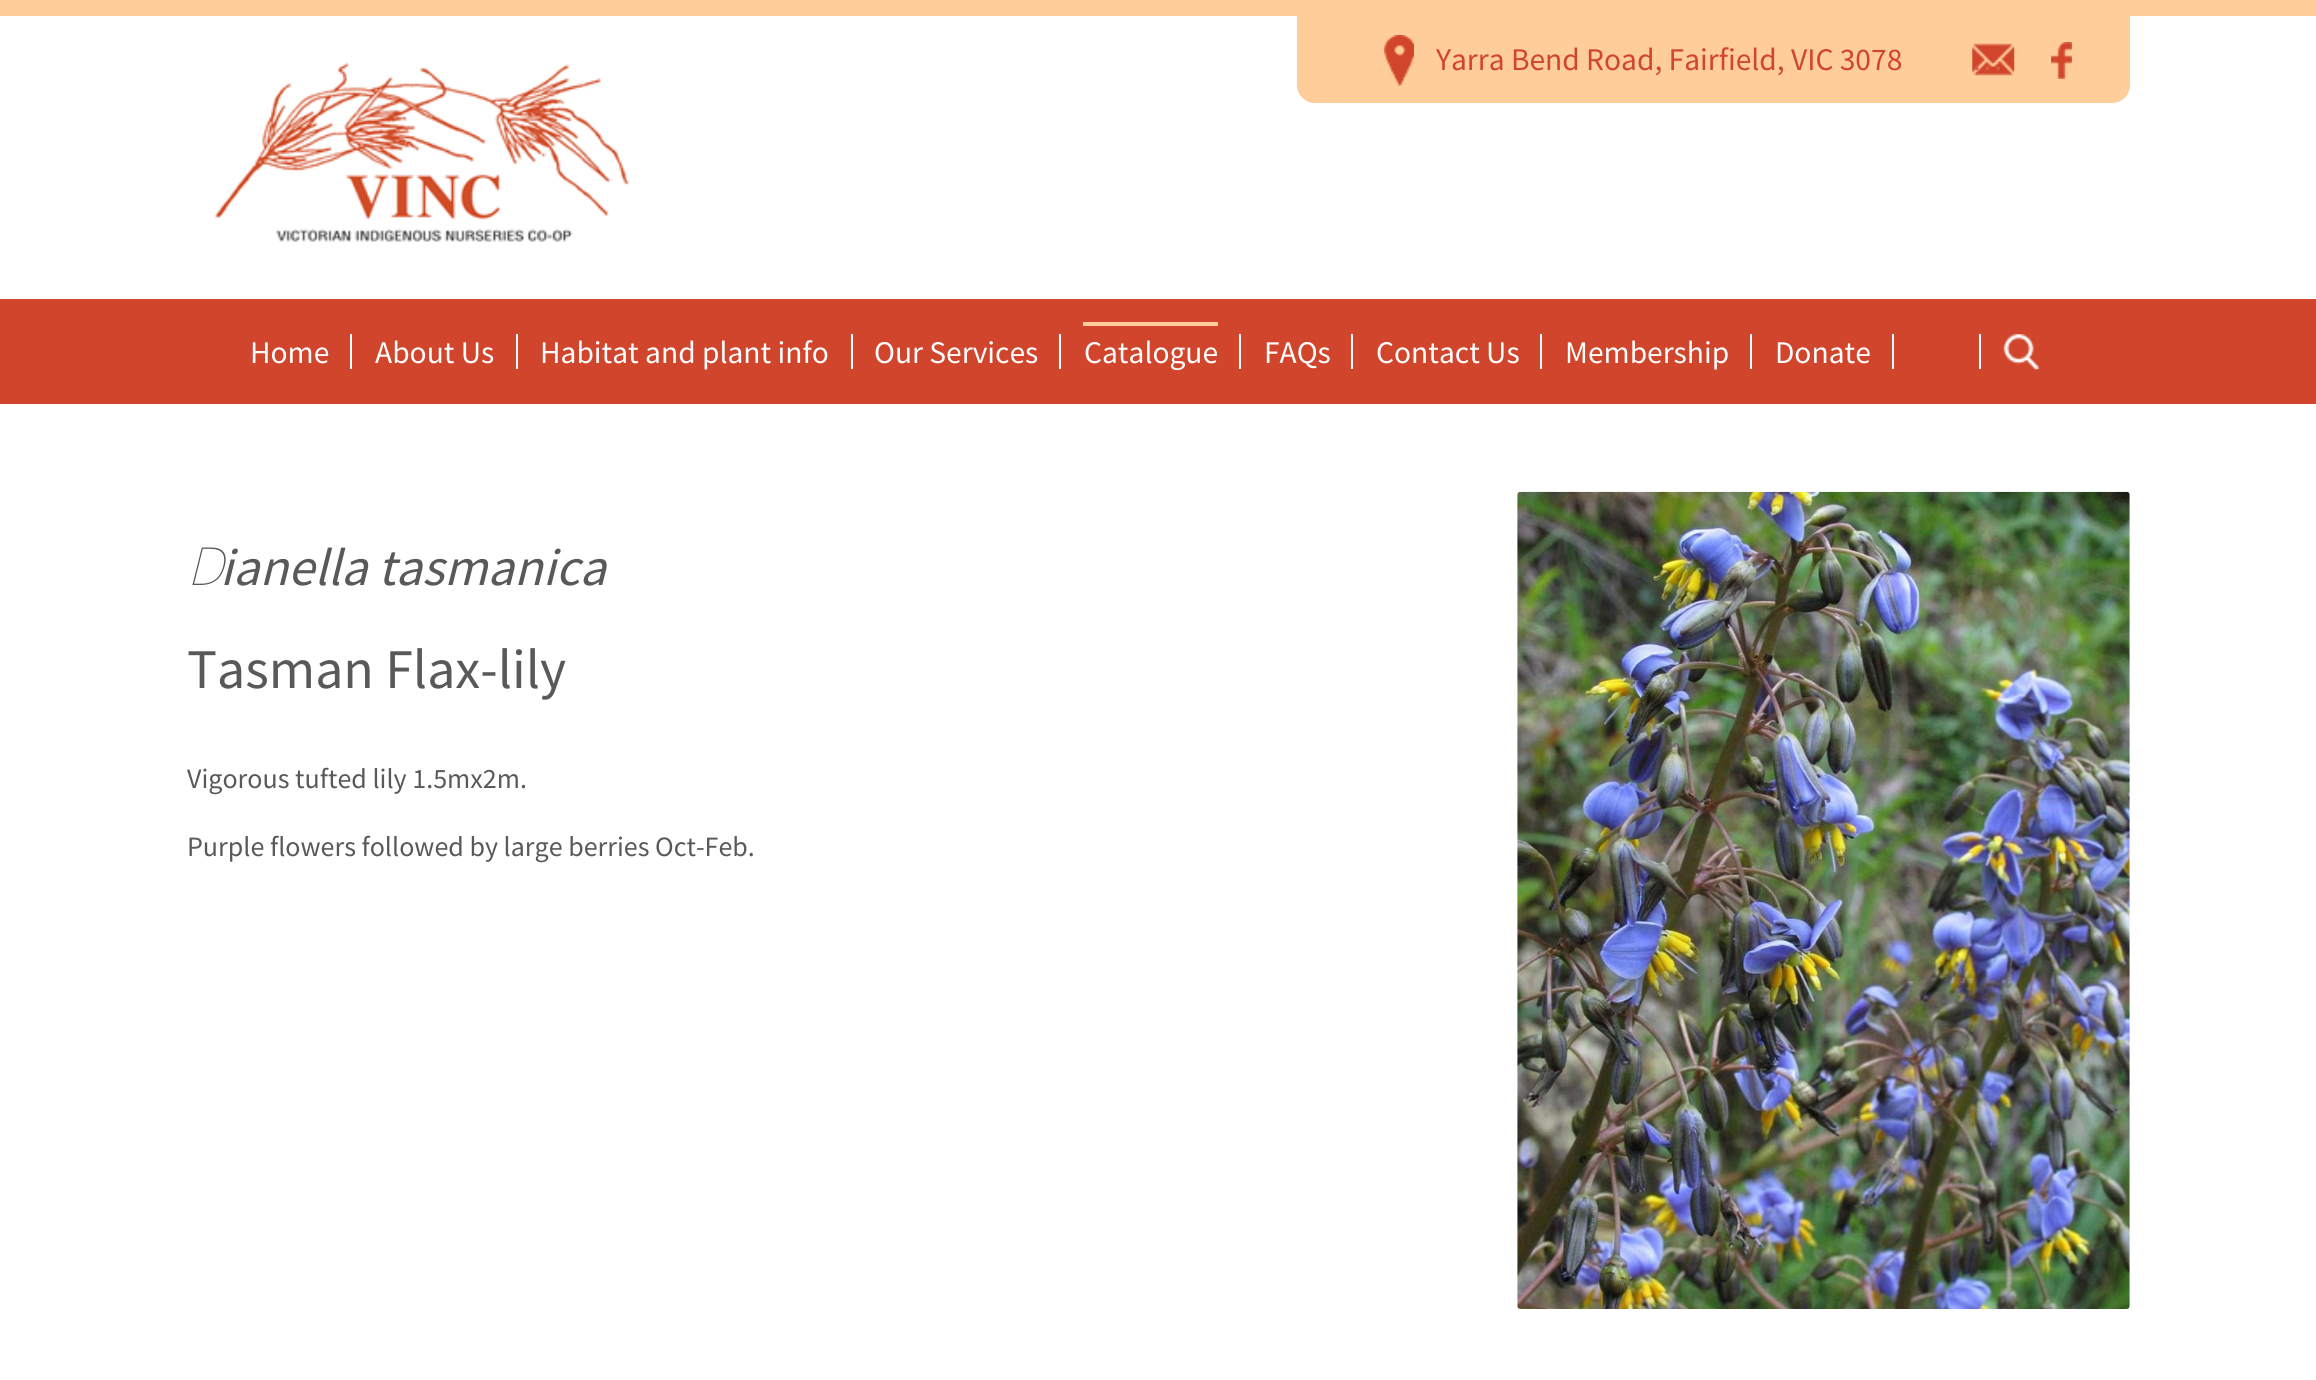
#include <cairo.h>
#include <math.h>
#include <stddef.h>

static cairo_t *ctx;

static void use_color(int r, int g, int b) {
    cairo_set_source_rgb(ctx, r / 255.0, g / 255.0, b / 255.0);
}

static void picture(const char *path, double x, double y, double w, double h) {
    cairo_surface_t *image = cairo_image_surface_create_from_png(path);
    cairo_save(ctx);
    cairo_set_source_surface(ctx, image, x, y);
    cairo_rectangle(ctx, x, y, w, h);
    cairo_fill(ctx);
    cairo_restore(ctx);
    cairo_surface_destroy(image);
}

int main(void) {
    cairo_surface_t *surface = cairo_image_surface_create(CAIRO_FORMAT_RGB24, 2316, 1380);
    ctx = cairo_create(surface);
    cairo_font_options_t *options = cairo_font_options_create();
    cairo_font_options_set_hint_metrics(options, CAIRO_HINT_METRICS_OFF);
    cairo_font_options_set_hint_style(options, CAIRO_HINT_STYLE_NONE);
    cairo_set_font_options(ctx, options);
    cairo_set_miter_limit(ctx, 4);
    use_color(255, 255, 255);
    cairo_paint(ctx);
    use_color(255, 205, 154);
    cairo_rectangle(ctx, 0, 0, 2316, 16);
    cairo_fill(ctx);
    picture("img1.png", 214, 62, 415, 180);
    cairo_new_path(ctx);
    cairo_move_to(ctx, 1297, 16);
    cairo_line_to(ctx, 2130, 16);
    cairo_line_to(ctx, 2130, 85);
    cairo_curve_to(ctx, 2130, 95, 2122, 103, 2112, 103);
    cairo_line_to(ctx, 1315, 103);
    cairo_curve_to(ctx, 1305, 103, 1297, 95, 1297, 85);
    cairo_close_path(ctx);
    cairo_fill(ctx);
    picture("img2.png", 1384, 35, 30, 51);
    cairo_select_font_face(ctx, "Source Sans Pro", CAIRO_FONT_SLANT_NORMAL, CAIRO_FONT_WEIGHT_NORMAL);
    cairo_set_font_size(ctx, 31.5);
    use_color(208, 69, 43);
    cairo_move_to(ctx, 1436, 70);
    cairo_show_text(ctx, "Yarra Bend Road, Fairfield, VIC 3078");
    picture("img3.png", 1972, 43, 43, 33);
    use_color(216, 94, 63);
    cairo_move_to(ctx, 1972, 70);
    cairo_show_text(ctx, "…");
    picture("img4.png", 2051, 42, 21, 37);
    use_color(208, 69, 43);
    cairo_rectangle(ctx, 0, 299, 2316, 105);
    cairo_fill(ctx);
    use_color(255, 255, 255);
    cairo_move_to(ctx, 250, 363);
    cairo_show_text(ctx, "Home");
    cairo_rectangle(ctx, 350, 334, 2, 35);
    cairo_fill(ctx);
    cairo_move_to(ctx, 375, 363);
    cairo_show_text(ctx, "About Us");
    cairo_rectangle(ctx, 516, 334, 2, 35);
    cairo_fill(ctx);
    cairo_move_to(ctx, 540, 363);
    cairo_show_text(ctx, "Habitat and plant info");
    cairo_rectangle(ctx, 851, 334, 2, 35);
    cairo_fill(ctx);
    cairo_move_to(ctx, 874, 363);
    cairo_show_text(ctx, "Our Services");
    cairo_rectangle(ctx, 1059, 334, 2, 35);
    cairo_fill(ctx);
    use_color(255, 205, 154);
    cairo_rectangle(ctx, 1083, 322, 135, 4);
    cairo_fill(ctx);
    use_color(255, 255, 255);
    cairo_move_to(ctx, 1084, 363);
    cairo_show_text(ctx, "Catalogue");
    cairo_rectangle(ctx, 1239, 334, 2, 35);
    cairo_fill(ctx);
    cairo_move_to(ctx, 1264, 363);
    cairo_show_text(ctx, "FAQs");
    cairo_rectangle(ctx, 1351, 334, 2, 35);
    cairo_fill(ctx);
    cairo_move_to(ctx, 1376, 363);
    cairo_show_text(ctx, "Contact Us");
    cairo_rectangle(ctx, 1540, 334, 2, 35);
    cairo_fill(ctx);
    cairo_move_to(ctx, 1565, 363);
    cairo_show_text(ctx, "Membership");
    cairo_rectangle(ctx, 1750, 334, 2, 35);
    cairo_fill(ctx);
    cairo_move_to(ctx, 1775, 363);
    cairo_show_text(ctx, "Donate");
    cairo_rectangle(ctx, 1892, 334, 2, 35);
    cairo_fill(ctx);
    picture("img5.png", 2003, 334, 36, 36);
    cairo_rectangle(ctx, 1979, 334, 2, 35);
    cairo_fill(ctx);
    cairo_select_font_face(ctx, "Noto Sans Thin", CAIRO_FONT_SLANT_ITALIC, CAIRO_FONT_WEIGHT_NORMAL);
    cairo_set_font_size(ctx, 52.5);
    use_color(89, 89, 89);
    cairo_move_to(ctx, 187, 585);
    cairo_show_text(ctx, "D");
    cairo_select_font_face(ctx, "Source Sans Pro", CAIRO_FONT_SLANT_ITALIC, CAIRO_FONT_WEIGHT_NORMAL);
    cairo_move_to(ctx, 220, 585);
    cairo_show_text(ctx, "ianella tasmanica");
    cairo_select_font_face(ctx, "Source Sans Pro", CAIRO_FONT_SLANT_NORMAL, CAIRO_FONT_WEIGHT_NORMAL);
    cairo_set_font_size(ctx, 56);
    cairo_move_to(ctx, 187, 688);
    cairo_show_text(ctx, "Tasman Flax-lily");
    cairo_set_font_size(ctx, 28);
    cairo_move_to(ctx, 187, 788);
    cairo_show_text(ctx, "Vigorous tufted lily 1.5mx2m.");
    cairo_move_to(ctx, 187, 856);
    cairo_show_text(ctx, "Purple flowers followed by large berries Oct-Feb.");
    picture("img6.png", 1517, 491, 613, 818);
    cairo_surface_write_to_png(surface, "result.png");
    cairo_font_options_destroy(options);
    cairo_destroy(ctx);
    cairo_surface_destroy(surface);
    return 0;
}
